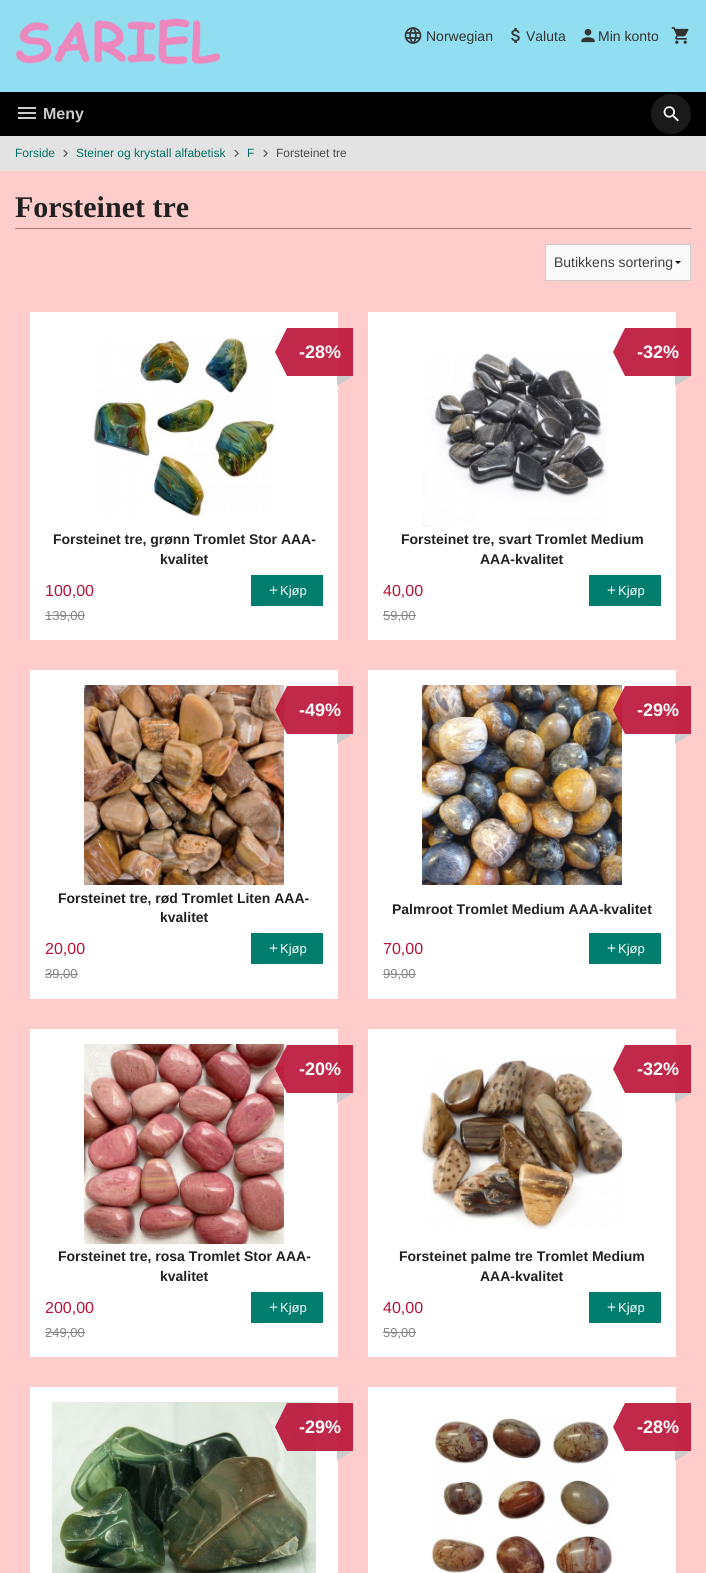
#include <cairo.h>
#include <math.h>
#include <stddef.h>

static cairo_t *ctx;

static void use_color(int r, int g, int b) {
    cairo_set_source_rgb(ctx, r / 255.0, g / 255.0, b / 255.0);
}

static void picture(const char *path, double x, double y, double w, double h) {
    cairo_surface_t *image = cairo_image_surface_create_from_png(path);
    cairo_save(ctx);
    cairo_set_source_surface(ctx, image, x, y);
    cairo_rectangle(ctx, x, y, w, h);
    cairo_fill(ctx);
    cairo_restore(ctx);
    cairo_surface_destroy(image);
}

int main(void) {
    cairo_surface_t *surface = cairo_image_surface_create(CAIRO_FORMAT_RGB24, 706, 1573);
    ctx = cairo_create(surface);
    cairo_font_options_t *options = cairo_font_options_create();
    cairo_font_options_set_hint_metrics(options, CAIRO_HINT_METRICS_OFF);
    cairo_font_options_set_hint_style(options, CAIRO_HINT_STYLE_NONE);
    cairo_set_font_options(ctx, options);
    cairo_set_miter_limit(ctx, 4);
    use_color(254, 204, 203);
    cairo_paint(ctx);
    use_color(193, 36, 69);
    cairo_rectangle(ctx, 676, 1403, 15, 48);
    cairo_fill(ctx);
    cairo_rectangle(ctx, 676, 1045, 15, 48);
    cairo_fill(ctx);
    cairo_rectangle(ctx, 338, 1045, 15, 48);
    cairo_fill(ctx);
    cairo_rectangle(ctx, 676, 686, 15, 48);
    cairo_fill(ctx);
    cairo_rectangle(ctx, 338, 686, 15, 48);
    cairo_fill(ctx);
    cairo_rectangle(ctx, 676, 328, 15, 48);
    cairo_fill(ctx);
    cairo_rectangle(ctx, 338, 328, 15, 48);
    cairo_fill(ctx);
    use_color(145, 222, 241);
    cairo_rectangle(ctx, 0, 0, 706, 92);
    cairo_fill(ctx);
    picture("img1.png", 16, 18, 204, 47);
    picture("img2.png", 404, 27, 18, 17);
    cairo_select_font_face(ctx, "Liberation Sans", CAIRO_FONT_SLANT_NORMAL, CAIRO_FONT_WEIGHT_NORMAL);
    cairo_set_font_size(ctx, 14);
    use_color(51, 51, 51);
    cairo_move_to(ctx, 426, 41);
    cairo_show_text(ctx, "Norwegian");
    picture("img3.png", 511, 28, 9, 15);
    cairo_move_to(ctx, 526, 41);
    cairo_show_text(ctx, "Valuta");
    picture("img4.png", 581, 28, 14, 15);
    cairo_move_to(ctx, 598, 41);
    cairo_show_text(ctx, "Min konto");
    picture("img5.png", 671, 27, 18, 17);
    use_color(0, 0, 0);
    cairo_rectangle(ctx, 0, 92, 706, 44);
    cairo_fill(ctx);
    picture("img6.png", 18, 107, 18, 12);
    cairo_select_font_face(ctx, "Liberation Sans", CAIRO_FONT_SLANT_NORMAL, CAIRO_FONT_WEIGHT_BOLD);
    cairo_set_font_size(ctx, 16);
    use_color(204, 204, 204);
    cairo_move_to(ctx, 43, 119);
    cairo_show_text(ctx, "Meny");
    use_color(26, 26, 26);
    cairo_new_path(ctx);
    cairo_arc(ctx, 671, 114, 20, 0, 2 * M_PI);
    cairo_fill(ctx);
    picture("img7.png", 663, 106, 16, 16);
    use_color(227, 227, 227);
    cairo_rectangle(ctx, 0, 136, 706, 35);
    cairo_fill(ctx);
    cairo_select_font_face(ctx, "Liberation Sans", CAIRO_FONT_SLANT_NORMAL, CAIRO_FONT_WEIGHT_NORMAL);
    cairo_set_font_size(ctx, 12);
    use_color(1, 115, 101);
    cairo_move_to(ctx, 15, 157);
    cairo_show_text(ctx, "Forside");
    picture("img8.png", 63, 149, 5, 8);
    cairo_move_to(ctx, 76, 157);
    cairo_show_text(ctx, "Steiner og krystall alfabetisk");
    picture("img8.png", 234, 149, 5, 8);
    cairo_move_to(ctx, 247, 157);
    cairo_show_text(ctx, "F");
    picture("img8.png", 263, 149, 5, 8);
    use_color(73, 73, 73);
    cairo_move_to(ctx, 276, 157);
    cairo_show_text(ctx, "Forsteinet tre");
    use_color(153, 128, 127);
    cairo_rectangle(ctx, 15, 228, 676, 1);
    cairo_fill(ctx);
    cairo_select_font_face(ctx, "Liberation Serif", CAIRO_FONT_SLANT_NORMAL, CAIRO_FONT_WEIGHT_BOLD);
    cairo_set_font_size(ctx, 30);
    use_color(33, 33, 33);
    cairo_move_to(ctx, 15, 217);
    cairo_show_text(ctx, "Forsteinet tre");
    use_color(250, 250, 250);
    cairo_rectangle(ctx, 546, 245, 144, 35);
    cairo_fill(ctx);
    use_color(0, 0, 0);
    cairo_new_path(ctx);
    cairo_move_to(ctx, 681, 261);
    cairo_line_to(ctx, 678, 264);
    cairo_line_to(ctx, 675, 261);
    cairo_close_path(ctx);
    cairo_fill(ctx);
    cairo_rectangle(ctx, 545.5, 244.5, 145, 36);
    use_color(204, 204, 204);
    cairo_set_line_width(ctx, 1);
    cairo_stroke(ctx);
    cairo_select_font_face(ctx, "Liberation Sans", CAIRO_FONT_SLANT_NORMAL, CAIRO_FONT_WEIGHT_NORMAL);
    cairo_set_font_size(ctx, 14);
    use_color(63, 63, 63);
    cairo_move_to(ctx, 554, 267);
    cairo_show_text(ctx, "Butikkens sortering");
    use_color(255, 255, 255);
    cairo_rectangle(ctx, 30, 312, 308, 328);
    cairo_fill(ctx);
    use_color(193, 41, 74);
    cairo_rectangle(ctx, 287, 328, 51, 48);
    cairo_fill(ctx);
    picture("img9.png", 92, 336, 184, 181);
    cairo_new_path(ctx);
    cairo_move_to(ctx, 287, 328);
    cairo_line_to(ctx, 287, 376);
    cairo_line_to(ctx, 275, 352);
    cairo_close_path(ctx);
    cairo_fill(ctx);
    cairo_select_font_face(ctx, "Liberation Sans", CAIRO_FONT_SLANT_NORMAL, CAIRO_FONT_WEIGHT_BOLD);
    cairo_set_font_size(ctx, 18);
    use_color(255, 255, 255);
    cairo_move_to(ctx, 299, 358);
    cairo_show_text(ctx, "-28%");
    use_color(204, 204, 204);
    cairo_new_path(ctx);
    cairo_move_to(ctx, 337, 386);
    cairo_line_to(ctx, 337, 376);
    cairo_line_to(ctx, 353, 376);
    cairo_close_path(ctx);
    cairo_fill(ctx);
    cairo_select_font_face(ctx, "Liberation Sans", CAIRO_FONT_SLANT_NORMAL, CAIRO_FONT_WEIGHT_NORMAL);
    cairo_set_font_size(ctx, 16);
    use_color(186, 17, 54);
    cairo_move_to(ctx, 45, 596);
    cairo_show_text(ctx, "100,00");
    cairo_set_font_size(ctx, 13);
    use_color(133, 133, 133);
    cairo_move_to(ctx, 45, 620);
    cairo_show_text(ctx, "139,00");
    cairo_rectangle(ctx, 45, 615, 40, 1);
    cairo_fill(ctx);
    cairo_select_font_face(ctx, "Liberation Sans", CAIRO_FONT_SLANT_NORMAL, CAIRO_FONT_WEIGHT_BOLD);
    cairo_set_font_size(ctx, 14);
    use_color(33, 33, 33);
    cairo_move_to(ctx, 53, 544);
    cairo_show_text(ctx, "Forsteinet tre, grønn Tromlet Stor AAA-");
    cairo_move_to(ctx, 160, 564);
    cairo_show_text(ctx, "kvalitet");
    use_color(1, 125, 110);
    cairo_rectangle(ctx, 251, 575, 72, 31);
    cairo_fill(ctx);
    picture("img10.png", 269, 586, 9, 8);
    cairo_select_font_face(ctx, "Liberation Sans", CAIRO_FONT_SLANT_NORMAL, CAIRO_FONT_WEIGHT_NORMAL);
    cairo_set_font_size(ctx, 13);
    use_color(255, 255, 255);
    cairo_move_to(ctx, 280, 595);
    cairo_show_text(ctx, "Kjøp");
    cairo_rectangle(ctx, 368, 312, 308, 328);
    cairo_fill(ctx);
    use_color(193, 41, 74);
    cairo_rectangle(ctx, 625, 328, 51, 48);
    cairo_fill(ctx);
    cairo_new_path(ctx);
    cairo_move_to(ctx, 625, 328);
    cairo_line_to(ctx, 625, 376);
    cairo_line_to(ctx, 613, 352);
    cairo_close_path(ctx);
    cairo_fill(ctx);
    cairo_select_font_face(ctx, "Liberation Sans", CAIRO_FONT_SLANT_NORMAL, CAIRO_FONT_WEIGHT_BOLD);
    cairo_set_font_size(ctx, 18);
    use_color(255, 255, 255);
    cairo_move_to(ctx, 637, 358);
    cairo_show_text(ctx, "-32%");
    use_color(204, 204, 204);
    cairo_new_path(ctx);
    cairo_move_to(ctx, 675, 386);
    cairo_line_to(ctx, 675, 376);
    cairo_line_to(ctx, 691, 376);
    cairo_close_path(ctx);
    cairo_fill(ctx);
    cairo_select_font_face(ctx, "Liberation Sans", CAIRO_FONT_SLANT_NORMAL, CAIRO_FONT_WEIGHT_NORMAL);
    cairo_set_font_size(ctx, 16);
    use_color(186, 17, 54);
    cairo_move_to(ctx, 383, 596);
    cairo_show_text(ctx, "40,00");
    cairo_set_font_size(ctx, 13);
    use_color(133, 133, 133);
    cairo_move_to(ctx, 383, 620);
    cairo_show_text(ctx, "59,00");
    cairo_rectangle(ctx, 383, 615, 33, 1);
    cairo_fill(ctx);
    picture("img11.png", 422, 353, 185, 174);
    cairo_select_font_face(ctx, "Liberation Sans", CAIRO_FONT_SLANT_NORMAL, CAIRO_FONT_WEIGHT_BOLD);
    cairo_set_font_size(ctx, 14);
    use_color(33, 33, 33);
    cairo_move_to(ctx, 401, 544);
    cairo_show_text(ctx, "Forsteinet tre, svart Tromlet Medium");
    cairo_move_to(ctx, 480, 564);
    cairo_show_text(ctx, "AAA-kvalitet");
    use_color(1, 125, 110);
    cairo_rectangle(ctx, 589, 575, 72, 31);
    cairo_fill(ctx);
    picture("img10.png", 607, 586, 9, 8);
    cairo_select_font_face(ctx, "Liberation Sans", CAIRO_FONT_SLANT_NORMAL, CAIRO_FONT_WEIGHT_NORMAL);
    cairo_set_font_size(ctx, 13);
    use_color(255, 255, 255);
    cairo_move_to(ctx, 618, 595);
    cairo_show_text(ctx, "Kjøp");
    cairo_rectangle(ctx, 30, 670, 308, 329);
    cairo_fill(ctx);
    use_color(193, 41, 74);
    cairo_rectangle(ctx, 287, 686, 51, 48);
    cairo_fill(ctx);
    picture("img12.png", 84, 685, 200, 200);
    cairo_set_source_rgba(ctx, 0.729, 0.067, 0.212, 0.9);
    cairo_new_path(ctx);
    cairo_move_to(ctx, 287, 686);
    cairo_line_to(ctx, 287, 734);
    cairo_line_to(ctx, 275, 710);
    cairo_close_path(ctx);
    cairo_fill(ctx);
    cairo_select_font_face(ctx, "Liberation Sans", CAIRO_FONT_SLANT_NORMAL, CAIRO_FONT_WEIGHT_BOLD);
    cairo_set_font_size(ctx, 18);
    use_color(255, 255, 255);
    cairo_move_to(ctx, 299, 716);
    cairo_show_text(ctx, "-49%");
    use_color(204, 204, 204);
    cairo_new_path(ctx);
    cairo_move_to(ctx, 337, 744);
    cairo_line_to(ctx, 337, 734);
    cairo_line_to(ctx, 353, 734);
    cairo_close_path(ctx);
    cairo_fill(ctx);
    cairo_select_font_face(ctx, "Liberation Sans", CAIRO_FONT_SLANT_NORMAL, CAIRO_FONT_WEIGHT_NORMAL);
    cairo_set_font_size(ctx, 16);
    use_color(186, 17, 54);
    cairo_move_to(ctx, 45, 954);
    cairo_show_text(ctx, "20,00");
    cairo_set_font_size(ctx, 13);
    use_color(133, 133, 133);
    cairo_move_to(ctx, 45, 978);
    cairo_show_text(ctx, "39,00");
    cairo_rectangle(ctx, 45, 974, 33, 1);
    cairo_fill(ctx);
    cairo_select_font_face(ctx, "Liberation Sans", CAIRO_FONT_SLANT_NORMAL, CAIRO_FONT_WEIGHT_BOLD);
    cairo_set_font_size(ctx, 14);
    use_color(33, 33, 33);
    cairo_move_to(ctx, 58, 903);
    cairo_show_text(ctx, "Forsteinet tre, rød Tromlet Liten AAA-");
    cairo_move_to(ctx, 160, 922);
    cairo_show_text(ctx, "kvalitet");
    use_color(1, 125, 110);
    cairo_rectangle(ctx, 251, 933, 72, 31);
    cairo_fill(ctx);
    picture("img10.png", 269, 944, 9, 8);
    cairo_select_font_face(ctx, "Liberation Sans", CAIRO_FONT_SLANT_NORMAL, CAIRO_FONT_WEIGHT_NORMAL);
    cairo_set_font_size(ctx, 13);
    use_color(255, 255, 255);
    cairo_move_to(ctx, 280, 953);
    cairo_show_text(ctx, "Kjøp");
    cairo_rectangle(ctx, 368, 670, 308, 329);
    cairo_fill(ctx);
    use_color(193, 41, 74);
    cairo_rectangle(ctx, 625, 686, 51, 48);
    cairo_fill(ctx);
    picture("img13.png", 422, 685, 200, 200);
    cairo_set_source_rgba(ctx, 0.729, 0.067, 0.212, 0.9);
    cairo_new_path(ctx);
    cairo_move_to(ctx, 625, 686);
    cairo_line_to(ctx, 625, 734);
    cairo_line_to(ctx, 613, 710);
    cairo_close_path(ctx);
    cairo_fill(ctx);
    cairo_select_font_face(ctx, "Liberation Sans", CAIRO_FONT_SLANT_NORMAL, CAIRO_FONT_WEIGHT_BOLD);
    cairo_set_font_size(ctx, 18);
    use_color(255, 255, 255);
    cairo_move_to(ctx, 637, 716);
    cairo_show_text(ctx, "-29%");
    use_color(204, 204, 204);
    cairo_new_path(ctx);
    cairo_move_to(ctx, 675, 744);
    cairo_line_to(ctx, 675, 734);
    cairo_line_to(ctx, 691, 734);
    cairo_close_path(ctx);
    cairo_fill(ctx);
    cairo_select_font_face(ctx, "Liberation Sans", CAIRO_FONT_SLANT_NORMAL, CAIRO_FONT_WEIGHT_NORMAL);
    cairo_set_font_size(ctx, 16);
    use_color(186, 17, 54);
    cairo_move_to(ctx, 383, 954);
    cairo_show_text(ctx, "70,00");
    cairo_set_font_size(ctx, 13);
    use_color(133, 133, 133);
    cairo_move_to(ctx, 383, 978);
    cairo_show_text(ctx, "99,00");
    cairo_rectangle(ctx, 383, 974, 33, 1);
    cairo_fill(ctx);
    cairo_select_font_face(ctx, "Liberation Sans", CAIRO_FONT_SLANT_NORMAL, CAIRO_FONT_WEIGHT_BOLD);
    cairo_set_font_size(ctx, 14);
    use_color(33, 33, 33);
    cairo_move_to(ctx, 392, 914);
    cairo_show_text(ctx, "Palmroot Tromlet Medium AAA-kvalitet");
    use_color(1, 125, 110);
    cairo_rectangle(ctx, 589, 933, 72, 31);
    cairo_fill(ctx);
    picture("img10.png", 607, 944, 9, 8);
    cairo_select_font_face(ctx, "Liberation Sans", CAIRO_FONT_SLANT_NORMAL, CAIRO_FONT_WEIGHT_NORMAL);
    cairo_set_font_size(ctx, 13);
    use_color(255, 255, 255);
    cairo_move_to(ctx, 618, 953);
    cairo_show_text(ctx, "Kjøp");
    cairo_rectangle(ctx, 30, 1029, 308, 328);
    cairo_fill(ctx);
    use_color(193, 41, 74);
    cairo_rectangle(ctx, 287, 1045, 51, 48);
    cairo_fill(ctx);
    picture("img14.png", 84, 1044, 200, 200);
    cairo_set_source_rgba(ctx, 0.729, 0.067, 0.212, 0.9);
    cairo_new_path(ctx);
    cairo_move_to(ctx, 287, 1045);
    cairo_line_to(ctx, 287, 1093);
    cairo_line_to(ctx, 275, 1069);
    cairo_close_path(ctx);
    cairo_fill(ctx);
    cairo_select_font_face(ctx, "Liberation Sans", CAIRO_FONT_SLANT_NORMAL, CAIRO_FONT_WEIGHT_BOLD);
    cairo_set_font_size(ctx, 18);
    use_color(255, 255, 255);
    cairo_move_to(ctx, 299, 1075);
    cairo_show_text(ctx, "-20%");
    use_color(204, 204, 204);
    cairo_new_path(ctx);
    cairo_move_to(ctx, 337, 1103);
    cairo_line_to(ctx, 337, 1093);
    cairo_line_to(ctx, 353, 1093);
    cairo_close_path(ctx);
    cairo_fill(ctx);
    cairo_select_font_face(ctx, "Liberation Sans", CAIRO_FONT_SLANT_NORMAL, CAIRO_FONT_WEIGHT_NORMAL);
    cairo_set_font_size(ctx, 16);
    use_color(186, 17, 54);
    cairo_move_to(ctx, 45, 1313);
    cairo_show_text(ctx, "200,00");
    cairo_set_font_size(ctx, 13);
    use_color(133, 133, 133);
    cairo_move_to(ctx, 45, 1337);
    cairo_show_text(ctx, "249,00");
    cairo_rectangle(ctx, 45, 1332, 40, 1);
    cairo_fill(ctx);
    cairo_select_font_face(ctx, "Liberation Sans", CAIRO_FONT_SLANT_NORMAL, CAIRO_FONT_WEIGHT_BOLD);
    cairo_set_font_size(ctx, 14);
    use_color(33, 33, 33);
    cairo_move_to(ctx, 58, 1261);
    cairo_show_text(ctx, "Forsteinet tre, rosa Tromlet Stor AAA-");
    cairo_move_to(ctx, 160, 1281);
    cairo_show_text(ctx, "kvalitet");
    use_color(1, 125, 110);
    cairo_rectangle(ctx, 251, 1292, 72, 31);
    cairo_fill(ctx);
    picture("img10.png", 269, 1303, 9, 8);
    cairo_select_font_face(ctx, "Liberation Sans", CAIRO_FONT_SLANT_NORMAL, CAIRO_FONT_WEIGHT_NORMAL);
    cairo_set_font_size(ctx, 13);
    use_color(255, 255, 255);
    cairo_move_to(ctx, 280, 1312);
    cairo_show_text(ctx, "Kjøp");
    cairo_rectangle(ctx, 368, 1029, 308, 328);
    cairo_fill(ctx);
    use_color(193, 41, 74);
    cairo_rectangle(ctx, 625, 1045, 51, 48);
    cairo_fill(ctx);
    picture("img15.png", 422, 1058, 200, 172);
    cairo_new_path(ctx);
    cairo_move_to(ctx, 625, 1045);
    cairo_line_to(ctx, 625, 1093);
    cairo_line_to(ctx, 613, 1069);
    cairo_close_path(ctx);
    cairo_fill(ctx);
    cairo_select_font_face(ctx, "Liberation Sans", CAIRO_FONT_SLANT_NORMAL, CAIRO_FONT_WEIGHT_BOLD);
    cairo_set_font_size(ctx, 18);
    use_color(255, 255, 255);
    cairo_move_to(ctx, 637, 1075);
    cairo_show_text(ctx, "-32%");
    use_color(204, 204, 204);
    cairo_new_path(ctx);
    cairo_move_to(ctx, 675, 1103);
    cairo_line_to(ctx, 675, 1093);
    cairo_line_to(ctx, 691, 1093);
    cairo_close_path(ctx);
    cairo_fill(ctx);
    cairo_select_font_face(ctx, "Liberation Sans", CAIRO_FONT_SLANT_NORMAL, CAIRO_FONT_WEIGHT_NORMAL);
    cairo_set_font_size(ctx, 16);
    use_color(186, 17, 54);
    cairo_move_to(ctx, 383, 1313);
    cairo_show_text(ctx, "40,00");
    cairo_set_font_size(ctx, 13);
    use_color(133, 133, 133);
    cairo_move_to(ctx, 383, 1337);
    cairo_show_text(ctx, "59,00");
    cairo_rectangle(ctx, 383, 1332, 33, 1);
    cairo_fill(ctx);
    cairo_select_font_face(ctx, "Liberation Sans", CAIRO_FONT_SLANT_NORMAL, CAIRO_FONT_WEIGHT_BOLD);
    cairo_set_font_size(ctx, 14);
    use_color(33, 33, 33);
    cairo_move_to(ctx, 399, 1261);
    cairo_show_text(ctx, "Forsteinet palme tre Tromlet Medium");
    cairo_move_to(ctx, 480, 1281);
    cairo_show_text(ctx, "AAA-kvalitet");
    use_color(1, 125, 110);
    cairo_rectangle(ctx, 589, 1292, 72, 31);
    cairo_fill(ctx);
    picture("img10.png", 607, 1303, 9, 8);
    cairo_select_font_face(ctx, "Liberation Sans", CAIRO_FONT_SLANT_NORMAL, CAIRO_FONT_WEIGHT_NORMAL);
    cairo_set_font_size(ctx, 13);
    use_color(255, 255, 255);
    cairo_move_to(ctx, 618, 1312);
    cairo_show_text(ctx, "Kjøp");
    cairo_rectangle(ctx, 30, 1387, 308, 186);
    cairo_fill(ctx);
    picture("img16.png", 52, 1402, 264, 171);
    cairo_set_source_rgba(ctx, 0.729, 0.067, 0.212, 0.9);
    cairo_rectangle(ctx, 287, 1403, 66, 48);
    cairo_fill(ctx);
    cairo_new_path(ctx);
    cairo_move_to(ctx, 287, 1403);
    cairo_line_to(ctx, 287, 1451);
    cairo_line_to(ctx, 275, 1427);
    cairo_close_path(ctx);
    cairo_fill(ctx);
    cairo_select_font_face(ctx, "Liberation Sans", CAIRO_FONT_SLANT_NORMAL, CAIRO_FONT_WEIGHT_BOLD);
    cairo_set_font_size(ctx, 18);
    use_color(255, 255, 255);
    cairo_move_to(ctx, 299, 1433);
    cairo_show_text(ctx, "-29%");
    use_color(204, 204, 204);
    cairo_new_path(ctx);
    cairo_move_to(ctx, 337, 1461);
    cairo_line_to(ctx, 337, 1451);
    cairo_line_to(ctx, 353, 1451);
    cairo_close_path(ctx);
    cairo_fill(ctx);
    use_color(255, 255, 255);
    cairo_rectangle(ctx, 368, 1387, 308, 186);
    cairo_fill(ctx);
    use_color(193, 41, 74);
    cairo_rectangle(ctx, 625, 1403, 51, 48);
    cairo_fill(ctx);
    picture("img17.png", 431, 1417, 182, 156);
    cairo_new_path(ctx);
    cairo_move_to(ctx, 625, 1403);
    cairo_line_to(ctx, 625, 1451);
    cairo_line_to(ctx, 613, 1427);
    cairo_close_path(ctx);
    cairo_fill(ctx);
    use_color(255, 255, 255);
    cairo_move_to(ctx, 637, 1433);
    cairo_show_text(ctx, "-28%");
    use_color(204, 204, 204);
    cairo_new_path(ctx);
    cairo_move_to(ctx, 675, 1461);
    cairo_line_to(ctx, 675, 1451);
    cairo_line_to(ctx, 691, 1451);
    cairo_close_path(ctx);
    cairo_fill(ctx);
    cairo_surface_write_to_png(surface, "result.png");
    cairo_font_options_destroy(options);
    cairo_destroy(ctx);
    cairo_surface_destroy(surface);
    return 0;
}
